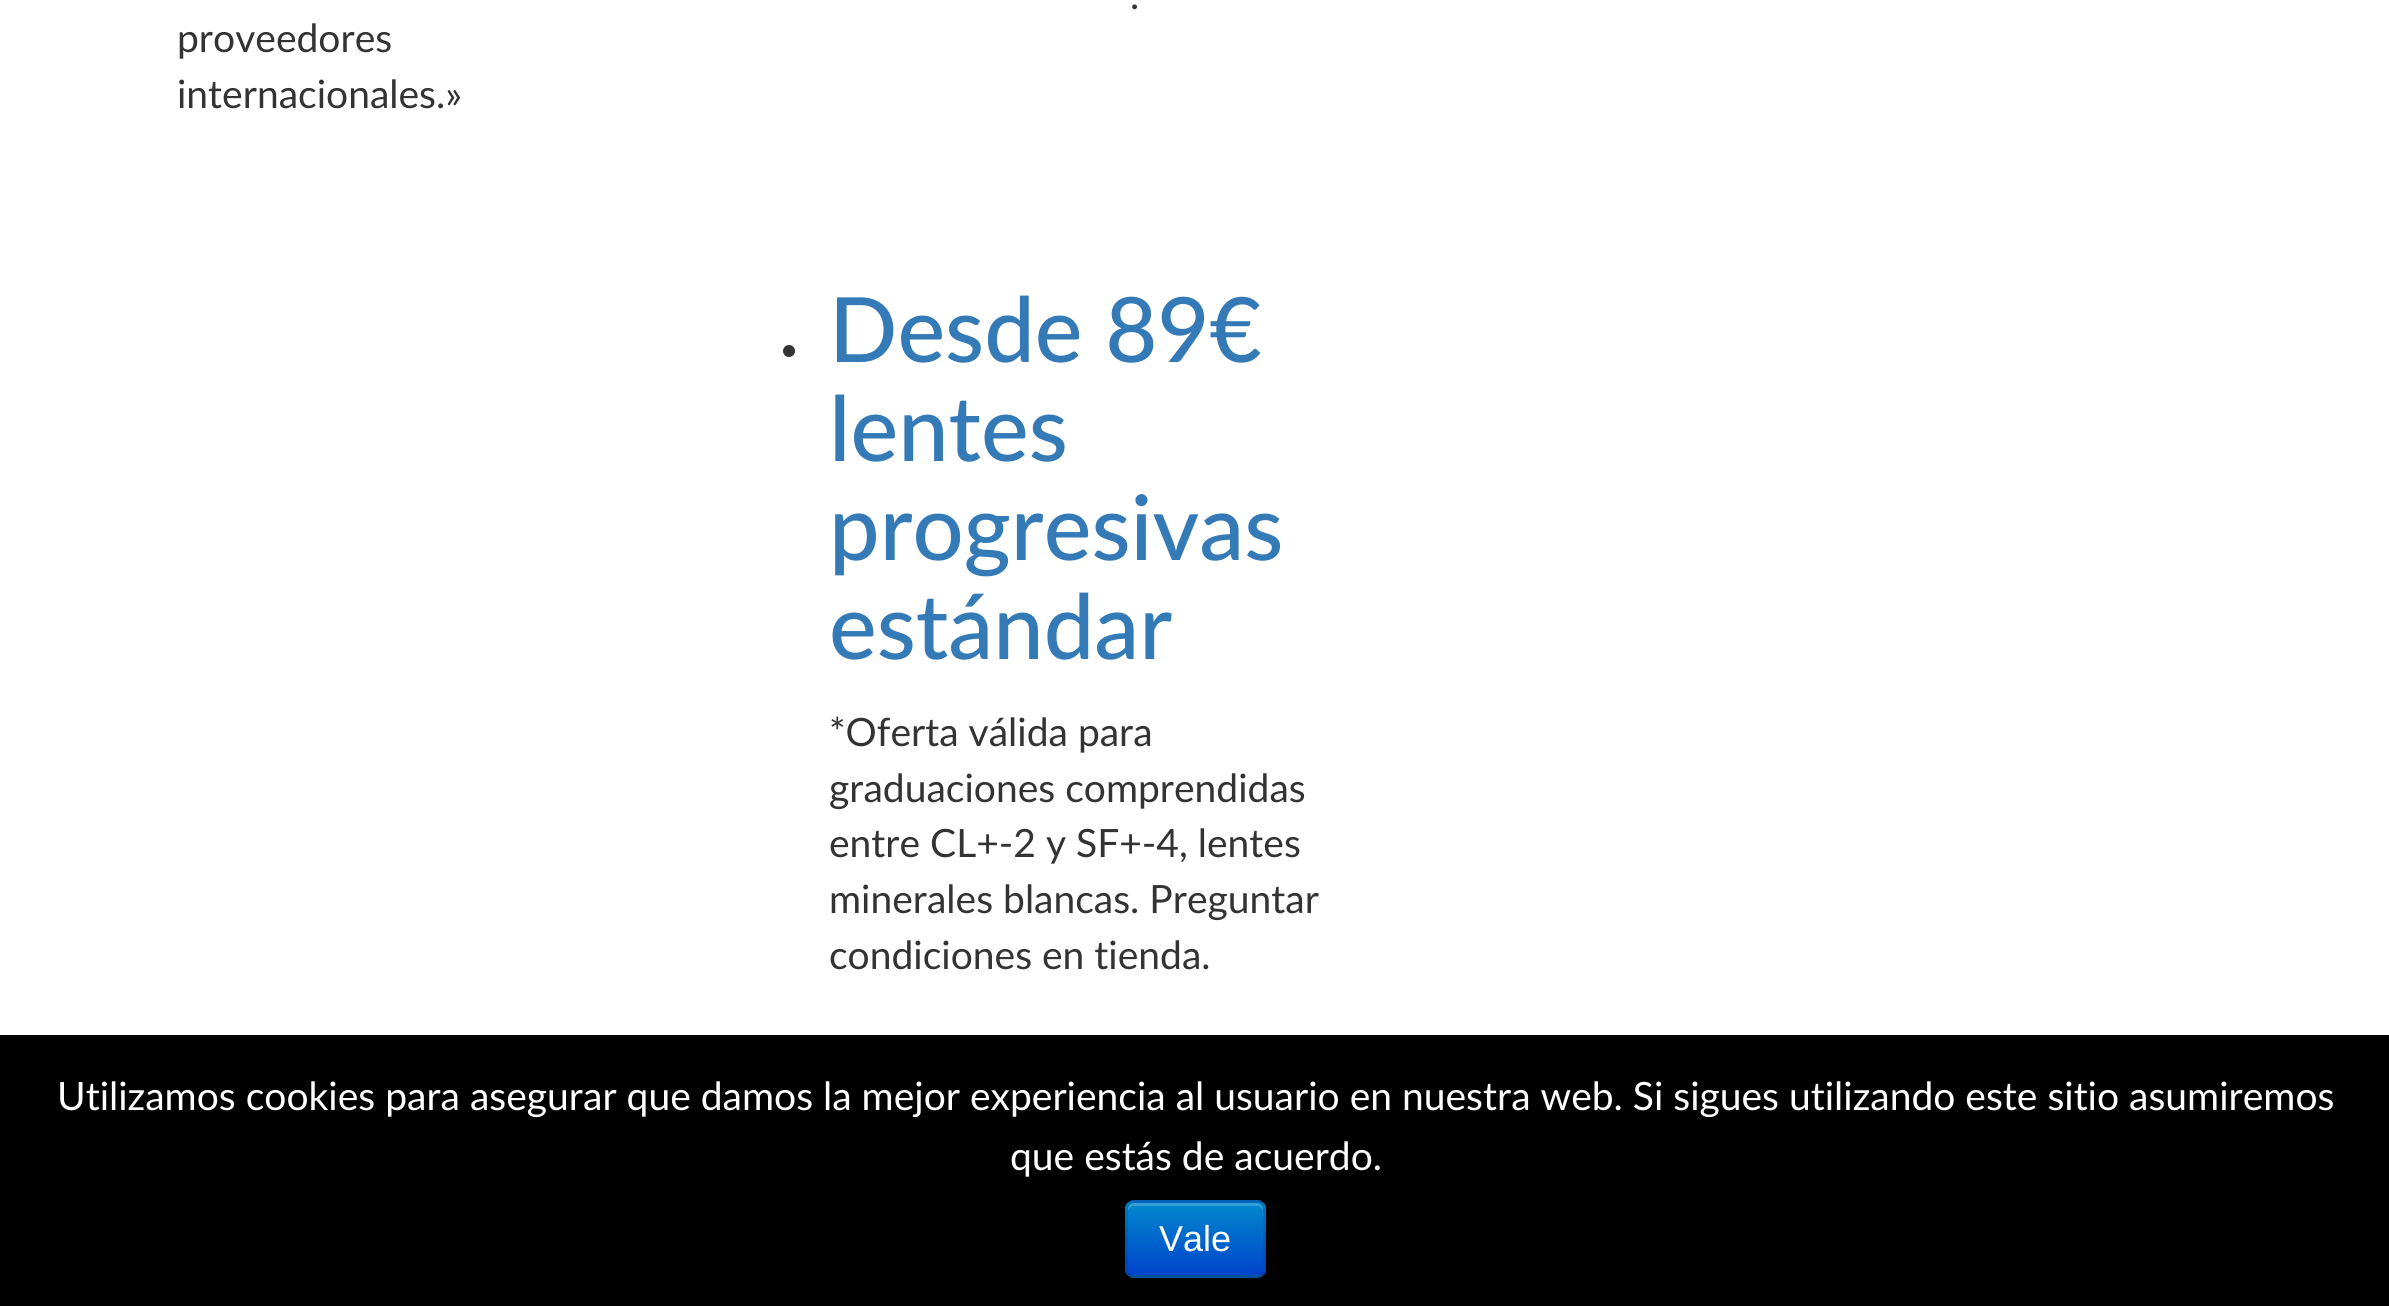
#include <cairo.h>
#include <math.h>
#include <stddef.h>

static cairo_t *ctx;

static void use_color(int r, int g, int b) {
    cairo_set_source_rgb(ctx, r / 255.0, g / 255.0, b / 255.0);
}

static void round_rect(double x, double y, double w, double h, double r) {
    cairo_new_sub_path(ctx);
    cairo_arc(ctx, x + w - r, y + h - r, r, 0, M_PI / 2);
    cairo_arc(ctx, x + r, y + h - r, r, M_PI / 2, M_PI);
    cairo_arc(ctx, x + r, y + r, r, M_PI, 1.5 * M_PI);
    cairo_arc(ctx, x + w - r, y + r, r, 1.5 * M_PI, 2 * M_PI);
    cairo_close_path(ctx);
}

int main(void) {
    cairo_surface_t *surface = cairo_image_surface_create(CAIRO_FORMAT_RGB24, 2389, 1306);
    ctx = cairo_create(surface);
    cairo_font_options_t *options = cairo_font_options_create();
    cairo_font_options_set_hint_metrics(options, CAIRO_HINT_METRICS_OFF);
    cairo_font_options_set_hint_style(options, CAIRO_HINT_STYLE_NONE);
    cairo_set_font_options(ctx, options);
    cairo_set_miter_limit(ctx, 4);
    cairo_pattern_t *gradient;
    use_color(255, 255, 255);
    cairo_paint(ctx);
    cairo_select_font_face(ctx, "Lato", CAIRO_FONT_SLANT_NORMAL, CAIRO_FONT_WEIGHT_NORMAL);
    cairo_set_font_size(ctx, 39);
    use_color(51, 51, 51);
    cairo_move_to(ctx, 1130, 9);
    cairo_show_text(ctx, ".");
    cairo_move_to(ctx, 177, 52);
    cairo_show_text(ctx, "proveedores");
    cairo_move_to(ctx, 177, 108);
    cairo_show_text(ctx, "internacionales.»");
    cairo_new_path(ctx);
    cairo_arc(ctx, 789, 351, 6, 0, 2 * M_PI);
    cairo_fill(ctx);
    cairo_select_font_face(ctx, "Lato Medium", CAIRO_FONT_SLANT_NORMAL, CAIRO_FONT_WEIGHT_NORMAL);
    cairo_set_font_size(ctx, 90);
    use_color(51, 122, 183);
    cairo_move_to(ctx, 829, 362);
    cairo_show_text(ctx, "Desde 89€");
    cairo_move_to(ctx, 829, 461);
    cairo_show_text(ctx, "lentes");
    cairo_move_to(ctx, 829, 560);
    cairo_show_text(ctx, "progresivas");
    cairo_move_to(ctx, 829, 659);
    cairo_show_text(ctx, "estándar");
    cairo_select_font_face(ctx, "Lato", CAIRO_FONT_SLANT_NORMAL, CAIRO_FONT_WEIGHT_NORMAL);
    cairo_set_font_size(ctx, 39);
    use_color(51, 51, 51);
    cairo_move_to(ctx, 829, 746);
    cairo_show_text(ctx, "*Oferta válida para");
    cairo_move_to(ctx, 829, 802);
    cairo_show_text(ctx, "graduaciones comprendidas");
    cairo_move_to(ctx, 829, 857);
    cairo_show_text(ctx, "entre CL+-2 y SF+-4, lentes");
    cairo_move_to(ctx, 829, 913);
    cairo_show_text(ctx, "minerales blancas. Preguntar");
    cairo_move_to(ctx, 829, 969);
    cairo_show_text(ctx, "condiciones en tienda.");
    use_color(0, 0, 0);
    cairo_rectangle(ctx, 0, 1035, 2389, 271);
    cairo_fill(ctx);
    use_color(255, 255, 255);
    cairo_move_to(ctx, 57, 1110);
    cairo_show_text(ctx, "Utilizamos cookies para asegurar que damos la mejor experiencia al usuario en nuestra web. Si sigues utilizando este sitio asumiremos");
    cairo_move_to(ctx, 1010, 1170);
    cairo_show_text(ctx, "que estás de acuerdo.");
    use_color(0, 109, 204);
    round_rect(1125, 1200, 141, 78, 9);
    cairo_fill(ctx);
    cairo_save(ctx);
    round_rect(1125, 1200, 141, 78, 9);
    cairo_clip(ctx);
    gradient = cairo_pattern_create_linear(1196, 1203, 1196, 1275);
    cairo_pattern_add_color_stop_rgba(gradient, 0, 0, 0.533, 0.8, 1);
    cairo_pattern_add_color_stop_rgba(gradient, 1, 0, 0.267, 0.8, 1);
    cairo_set_source(ctx, gradient);
    cairo_pattern_destroy(gradient);
    cairo_rectangle(ctx, 1125, 1203, 141, 72);
    cairo_fill(ctx);
    cairo_restore(ctx);
    cairo_set_source_rgba(ctx, 1, 1, 1, 0.2);
    cairo_new_path(ctx);
    cairo_move_to(ctx, 1134, 1206);
    cairo_line_to(ctx, 1257, 1206);
    cairo_curve_to(ctx, 1260, 1206, 1263, 1209, 1263, 1212);
    cairo_line_to(ctx, 1263, 1209);
    cairo_curve_to(ctx, 1263, 1206, 1260, 1203, 1257, 1203);
    cairo_line_to(ctx, 1134, 1203);
    cairo_curve_to(ctx, 1131, 1203, 1128, 1206, 1128, 1209);
    cairo_line_to(ctx, 1128, 1212);
    cairo_curve_to(ctx, 1128, 1209, 1131, 1206, 1134, 1206);
    cairo_close_path(ctx);
    cairo_fill(ctx);
    cairo_new_path(ctx);
    cairo_move_to(ctx, 1262.5, 1274.5);
    cairo_curve_to(ctx, 1261, 1275.5, 1259, 1276.5, 1257, 1276.5);
    cairo_line_to(ctx, 1134, 1276.5);
    cairo_curve_to(ctx, 1132, 1276.5, 1130, 1275.5, 1128.5, 1274.5);
    cairo_set_source_rgba(ctx, 0, 0, 0, 0.25);
    cairo_set_line_width(ctx, 3);
    cairo_stroke(ctx);
    cairo_new_path(ctx);
    cairo_move_to(ctx, 1128.5, 1274.5);
    cairo_curve_to(ctx, 1127.5, 1273, 1126.5, 1271, 1126.5, 1269);
    cairo_line_to(ctx, 1126.5, 1209);
    cairo_curve_to(ctx, 1126.5, 1207, 1127.5, 1205, 1128.5, 1203.5);
    cairo_curve_to(ctx, 1130, 1202.5, 1132, 1201.5, 1134, 1201.5);
    cairo_line_to(ctx, 1257, 1201.5);
    cairo_curve_to(ctx, 1259, 1201.5, 1261, 1202.5, 1262.5, 1203.5);
    cairo_curve_to(ctx, 1263.5, 1205, 1264.5, 1207, 1264.5, 1209);
    cairo_line_to(ctx, 1264.5, 1269);
    cairo_curve_to(ctx, 1264.5, 1271, 1263.5, 1273, 1262.5, 1274.5);
    cairo_set_source_rgba(ctx, 0, 0, 0, 0.1);
    cairo_stroke(ctx);
    cairo_select_font_face(ctx, "Liberation Sans", CAIRO_FONT_SLANT_NORMAL, CAIRO_FONT_WEIGHT_NORMAL);
    cairo_set_font_size(ctx, 36);
    use_color(255, 255, 255);
    cairo_move_to(ctx, 1159, 1251);
    cairo_show_text(ctx, "Vale");
    cairo_surface_write_to_png(surface, "result.png");
    cairo_font_options_destroy(options);
    cairo_destroy(ctx);
    cairo_surface_destroy(surface);
    return 0;
}
